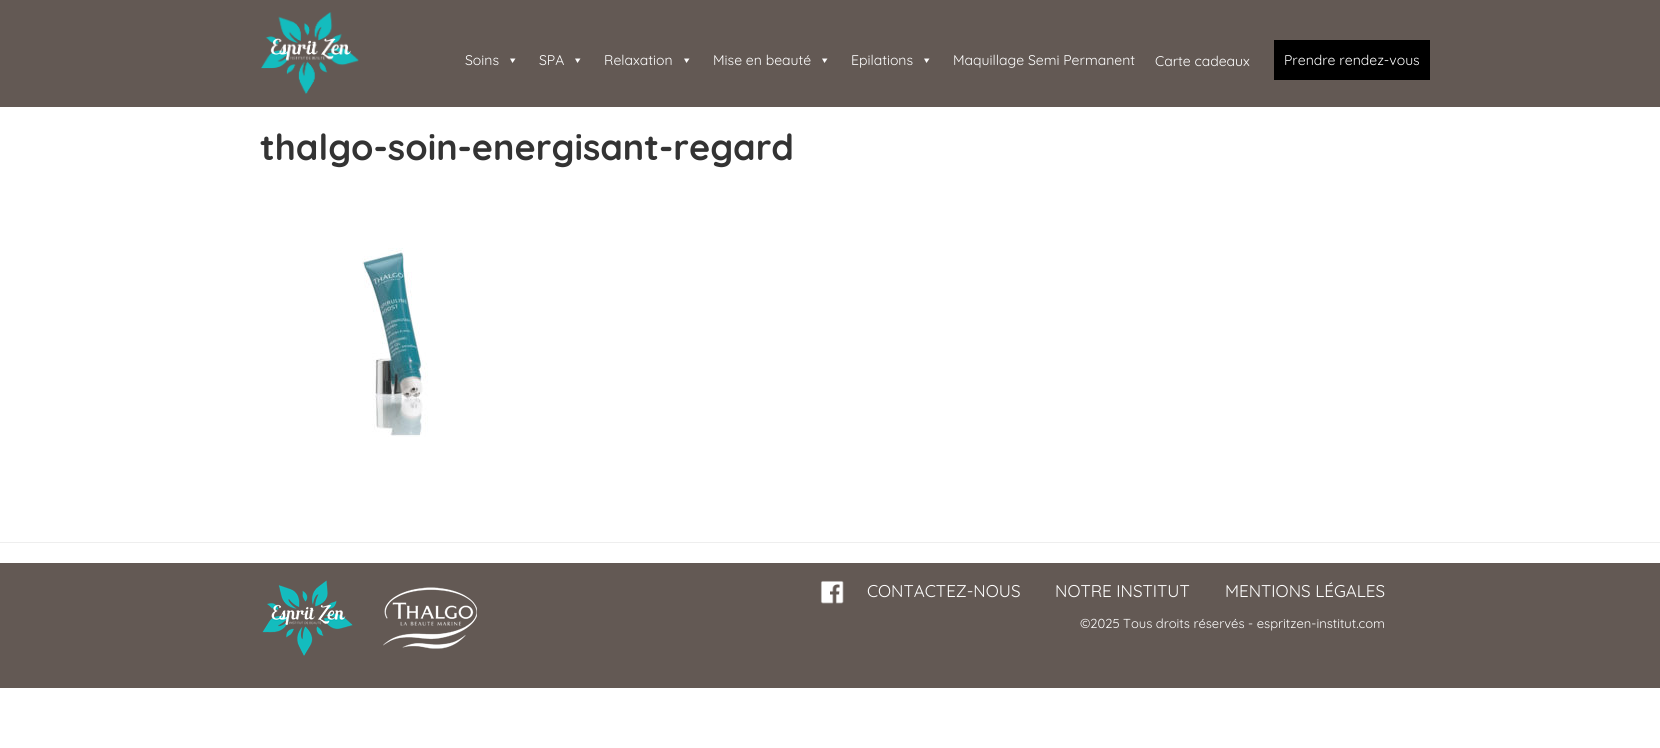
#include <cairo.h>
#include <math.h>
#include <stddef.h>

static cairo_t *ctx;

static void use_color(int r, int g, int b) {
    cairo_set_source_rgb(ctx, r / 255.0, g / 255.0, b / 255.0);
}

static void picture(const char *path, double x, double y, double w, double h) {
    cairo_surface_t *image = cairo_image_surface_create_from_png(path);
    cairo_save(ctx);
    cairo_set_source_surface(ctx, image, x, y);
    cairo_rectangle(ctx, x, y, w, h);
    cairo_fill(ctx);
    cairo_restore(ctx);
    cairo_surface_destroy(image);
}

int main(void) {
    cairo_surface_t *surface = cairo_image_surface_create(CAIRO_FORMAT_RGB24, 1660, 748);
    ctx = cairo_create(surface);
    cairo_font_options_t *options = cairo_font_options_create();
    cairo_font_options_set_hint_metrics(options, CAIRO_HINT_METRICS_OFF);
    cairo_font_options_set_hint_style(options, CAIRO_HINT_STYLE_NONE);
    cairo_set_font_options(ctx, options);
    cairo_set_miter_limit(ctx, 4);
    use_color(255, 255, 255);
    cairo_paint(ctx);
    use_color(99, 89, 84);
    cairo_rectangle(ctx, 0, 0, 1660, 107);
    cairo_fill(ctx);
    picture("img1.png", 261, 12, 98, 82);
    cairo_select_font_face(ctx, "Quicksand", CAIRO_FONT_SLANT_NORMAL, CAIRO_FONT_WEIGHT_NORMAL);
    cairo_set_font_size(ctx, 14);
    use_color(255, 255, 255);
    cairo_move_to(ctx, 465, 65);
    cairo_show_text(ctx, "Soins");
    cairo_new_path(ctx);
    cairo_move_to(ctx, 515.5, 58.5);
    cairo_line_to(ctx, 512.5, 63);
    cairo_line_to(ctx, 510, 58.5);
    cairo_close_path(ctx);
    cairo_fill(ctx);
    cairo_move_to(ctx, 539, 65);
    cairo_show_text(ctx, "SPA");
    cairo_new_path(ctx);
    cairo_move_to(ctx, 580.5, 58.5);
    cairo_line_to(ctx, 577.5, 63);
    cairo_line_to(ctx, 575, 58.5);
    cairo_close_path(ctx);
    cairo_fill(ctx);
    cairo_move_to(ctx, 604, 65);
    cairo_show_text(ctx, "Relaxation");
    cairo_new_path(ctx);
    cairo_move_to(ctx, 689.5, 58.5);
    cairo_line_to(ctx, 686.5, 63);
    cairo_line_to(ctx, 684, 58.5);
    cairo_close_path(ctx);
    cairo_fill(ctx);
    cairo_move_to(ctx, 713, 65);
    cairo_show_text(ctx, "Mise en beauté");
    cairo_new_path(ctx);
    cairo_move_to(ctx, 827.5, 58.5);
    cairo_line_to(ctx, 824.5, 63);
    cairo_line_to(ctx, 822, 58.5);
    cairo_close_path(ctx);
    cairo_fill(ctx);
    cairo_move_to(ctx, 851, 65);
    cairo_show_text(ctx, "Epilations");
    cairo_new_path(ctx);
    cairo_move_to(ctx, 929.5, 58.5);
    cairo_line_to(ctx, 926.5, 63);
    cairo_line_to(ctx, 924, 58.5);
    cairo_close_path(ctx);
    cairo_fill(ctx);
    cairo_move_to(ctx, 953, 65);
    cairo_show_text(ctx, "Maquillage Semi Permanent");
    cairo_move_to(ctx, 1155, 66);
    cairo_show_text(ctx, "Carte cadeaux");
    use_color(0, 0, 0);
    cairo_rectangle(ctx, 1274, 40, 156, 40);
    cairo_fill(ctx);
    use_color(255, 255, 255);
    cairo_move_to(ctx, 1284, 65);
    cairo_show_text(ctx, "Prendre rendez-vous");
    cairo_select_font_face(ctx, "Quicksand", CAIRO_FONT_SLANT_NORMAL, CAIRO_FONT_WEIGHT_BOLD);
    cairo_set_font_size(ctx, 36);
    use_color(51, 51, 51);
    cairo_move_to(ctx, 260, 160);
    cairo_show_text(ctx, "thalgo-soin-energisant-regard");
    picture("img2.png", 362, 248, 66, 189);
    use_color(238, 238, 238);
    cairo_rectangle(ctx, 0, 542, 1660, 1);
    cairo_fill(ctx);
    use_color(99, 89, 84);
    cairo_rectangle(ctx, 0, 563, 1660, 125);
    cairo_fill(ctx);
    picture("img3.png", 262, 580, 91, 76);
    picture("img4.png", 383, 587, 94, 62);
    picture("img5.png", 820, 580, 24, 24);
    cairo_select_font_face(ctx, "Quicksand", CAIRO_FONT_SLANT_NORMAL, CAIRO_FONT_WEIGHT_NORMAL);
    cairo_set_font_size(ctx, 17);
    use_color(255, 255, 255);
    cairo_move_to(ctx, 867, 597);
    cairo_show_text(ctx, "CONTACTEZ-NOUS");
    cairo_move_to(ctx, 1055, 597);
    cairo_show_text(ctx, "NOTRE INSTITUT");
    cairo_move_to(ctx, 1225, 597);
    cairo_show_text(ctx, "MENTIONS LÉGALES");
    cairo_set_font_size(ctx, 13);
    cairo_move_to(ctx, 1080, 628);
    cairo_show_text(ctx, "©2025 Tous droits réservés - espritzen-institut.com");
    cairo_surface_write_to_png(surface, "result.png");
    cairo_font_options_destroy(options);
    cairo_destroy(ctx);
    cairo_surface_destroy(surface);
    return 0;
}
